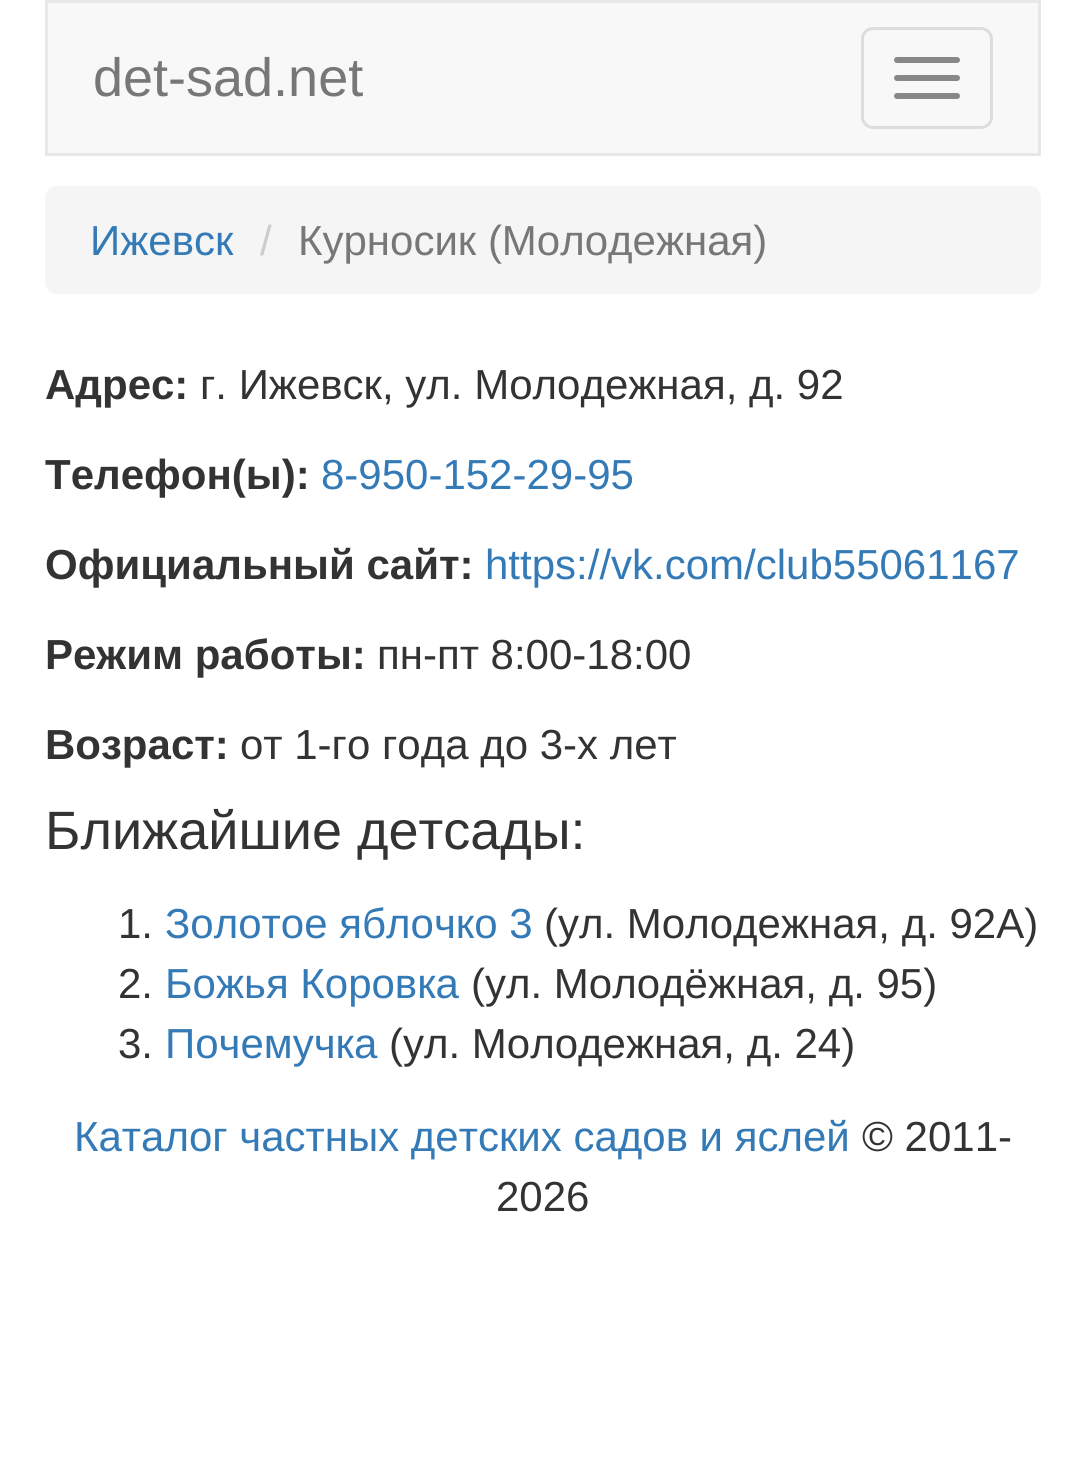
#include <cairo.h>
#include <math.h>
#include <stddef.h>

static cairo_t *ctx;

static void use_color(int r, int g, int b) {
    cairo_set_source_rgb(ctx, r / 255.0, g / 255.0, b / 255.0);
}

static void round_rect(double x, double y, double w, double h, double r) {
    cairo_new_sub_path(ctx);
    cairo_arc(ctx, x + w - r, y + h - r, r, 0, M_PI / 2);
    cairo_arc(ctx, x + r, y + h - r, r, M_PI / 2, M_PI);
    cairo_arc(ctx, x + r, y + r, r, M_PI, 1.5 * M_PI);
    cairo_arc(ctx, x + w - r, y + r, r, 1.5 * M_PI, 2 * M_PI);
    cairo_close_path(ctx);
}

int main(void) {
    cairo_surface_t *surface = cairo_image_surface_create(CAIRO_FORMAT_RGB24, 1084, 1462);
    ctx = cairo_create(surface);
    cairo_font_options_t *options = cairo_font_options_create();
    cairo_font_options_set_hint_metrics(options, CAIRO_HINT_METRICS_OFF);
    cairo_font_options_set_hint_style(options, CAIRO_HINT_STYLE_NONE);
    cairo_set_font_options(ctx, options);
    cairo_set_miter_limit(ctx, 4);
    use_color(255, 255, 255);
    cairo_paint(ctx);
    use_color(248, 248, 248);
    cairo_rectangle(ctx, 46.5, 1.5, 993, 153);
    cairo_fill_preserve(ctx);
    use_color(231, 231, 231);
    cairo_set_line_width(ctx, 3);
    cairo_stroke(ctx);
    cairo_select_font_face(ctx, "Liberation Sans", CAIRO_FONT_SLANT_NORMAL, CAIRO_FONT_WEIGHT_NORMAL);
    cairo_set_font_size(ctx, 54);
    use_color(119, 119, 119);
    cairo_move_to(ctx, 93, 96);
    cairo_show_text(ctx, "det-sad.net");
    round_rect(862.5, 28.5, 129, 99, 10.5);
    use_color(221, 221, 221);
    cairo_stroke(ctx);
    use_color(136, 136, 136);
    round_rect(894, 57, 66, 6, 3);
    cairo_fill(ctx);
    round_rect(894, 75, 66, 6, 3);
    cairo_fill(ctx);
    round_rect(894, 93, 66, 6, 3);
    cairo_fill(ctx);
    use_color(245, 245, 245);
    round_rect(45, 186, 996, 108, 12);
    cairo_fill(ctx);
    cairo_set_font_size(ctx, 42);
    use_color(51, 122, 183);
    cairo_move_to(ctx, 90, 255);
    cairo_show_text(ctx, "Ижевск");
    use_color(204, 204, 204);
    cairo_move_to(ctx, 260, 255);
    cairo_show_text(ctx, "/");
    use_color(119, 119, 119);
    cairo_move_to(ctx, 298, 255);
    cairo_show_text(ctx, "Курносик (Молодежная)");
    cairo_select_font_face(ctx, "Liberation Sans", CAIRO_FONT_SLANT_NORMAL, CAIRO_FONT_WEIGHT_BOLD);
    use_color(51, 51, 51);
    cairo_move_to(ctx, 45, 399);
    cairo_show_text(ctx, "Адрес:");
    cairo_select_font_face(ctx, "Liberation Sans", CAIRO_FONT_SLANT_NORMAL, CAIRO_FONT_WEIGHT_NORMAL);
    cairo_move_to(ctx, 200, 399);
    cairo_show_text(ctx, "г. Ижевск, ул. Молодежная, д. 92");
    cairo_select_font_face(ctx, "Liberation Sans", CAIRO_FONT_SLANT_NORMAL, CAIRO_FONT_WEIGHT_BOLD);
    cairo_move_to(ctx, 45, 489);
    cairo_show_text(ctx, "Телефон(ы):");
    cairo_select_font_face(ctx, "Liberation Sans", CAIRO_FONT_SLANT_NORMAL, CAIRO_FONT_WEIGHT_NORMAL);
    use_color(51, 122, 183);
    cairo_move_to(ctx, 321, 489);
    cairo_show_text(ctx, "8-950-152-29-95");
    cairo_select_font_face(ctx, "Liberation Sans", CAIRO_FONT_SLANT_NORMAL, CAIRO_FONT_WEIGHT_BOLD);
    use_color(51, 51, 51);
    cairo_move_to(ctx, 45, 579);
    cairo_show_text(ctx, "Официальный сайт:");
    cairo_select_font_face(ctx, "Liberation Sans", CAIRO_FONT_SLANT_NORMAL, CAIRO_FONT_WEIGHT_NORMAL);
    use_color(51, 122, 183);
    cairo_move_to(ctx, 485, 579);
    cairo_show_text(ctx, "https://vk.com/club55061167");
    cairo_select_font_face(ctx, "Liberation Sans", CAIRO_FONT_SLANT_NORMAL, CAIRO_FONT_WEIGHT_BOLD);
    use_color(51, 51, 51);
    cairo_move_to(ctx, 45, 669);
    cairo_show_text(ctx, "Режим работы:");
    cairo_select_font_face(ctx, "Liberation Sans", CAIRO_FONT_SLANT_NORMAL, CAIRO_FONT_WEIGHT_NORMAL);
    cairo_move_to(ctx, 377, 669);
    cairo_show_text(ctx, "пн-пт 8:00-18:00");
    cairo_select_font_face(ctx, "Liberation Sans", CAIRO_FONT_SLANT_NORMAL, CAIRO_FONT_WEIGHT_BOLD);
    cairo_move_to(ctx, 45, 759);
    cairo_show_text(ctx, "Возраст:");
    cairo_select_font_face(ctx, "Liberation Sans", CAIRO_FONT_SLANT_NORMAL, CAIRO_FONT_WEIGHT_NORMAL);
    cairo_move_to(ctx, 240, 759);
    cairo_show_text(ctx, "от 1-го года до 3-х лет");
    cairo_set_font_size(ctx, 54);
    cairo_move_to(ctx, 45, 849);
    cairo_show_text(ctx, "Ближайшие детсады:");
    cairo_set_font_size(ctx, 42);
    cairo_move_to(ctx, 118, 938);
    cairo_show_text(ctx, "1.");
    use_color(51, 122, 183);
    cairo_move_to(ctx, 165, 938);
    cairo_show_text(ctx, "Золотое яблочко 3");
    use_color(51, 51, 51);
    cairo_move_to(ctx, 544, 938);
    cairo_show_text(ctx, "(ул. Молодежная, д. 92А)");
    cairo_move_to(ctx, 118, 998);
    cairo_show_text(ctx, "2.");
    use_color(51, 122, 183);
    cairo_move_to(ctx, 165, 998);
    cairo_show_text(ctx, "Божья Коровка");
    use_color(51, 51, 51);
    cairo_move_to(ctx, 471, 998);
    cairo_show_text(ctx, "(ул. Молодёжная, д. 95)");
    cairo_move_to(ctx, 118, 1058);
    cairo_show_text(ctx, "3.");
    use_color(51, 122, 183);
    cairo_move_to(ctx, 165, 1058);
    cairo_show_text(ctx, "Почемучка");
    use_color(51, 51, 51);
    cairo_move_to(ctx, 389, 1058);
    cairo_show_text(ctx, "(ул. Молодежная, д. 24)");
    use_color(51, 122, 183);
    cairo_move_to(ctx, 74, 1151);
    cairo_show_text(ctx, "Каталог частных детских садов и яслей");
    use_color(51, 51, 51);
    cairo_move_to(ctx, 862, 1151);
    cairo_show_text(ctx, "© 2011-");
    cairo_move_to(ctx, 496, 1211);
    cairo_show_text(ctx, "2026");
    cairo_surface_write_to_png(surface, "result.png");
    cairo_font_options_destroy(options);
    cairo_destroy(ctx);
    cairo_surface_destroy(surface);
    return 0;
}
